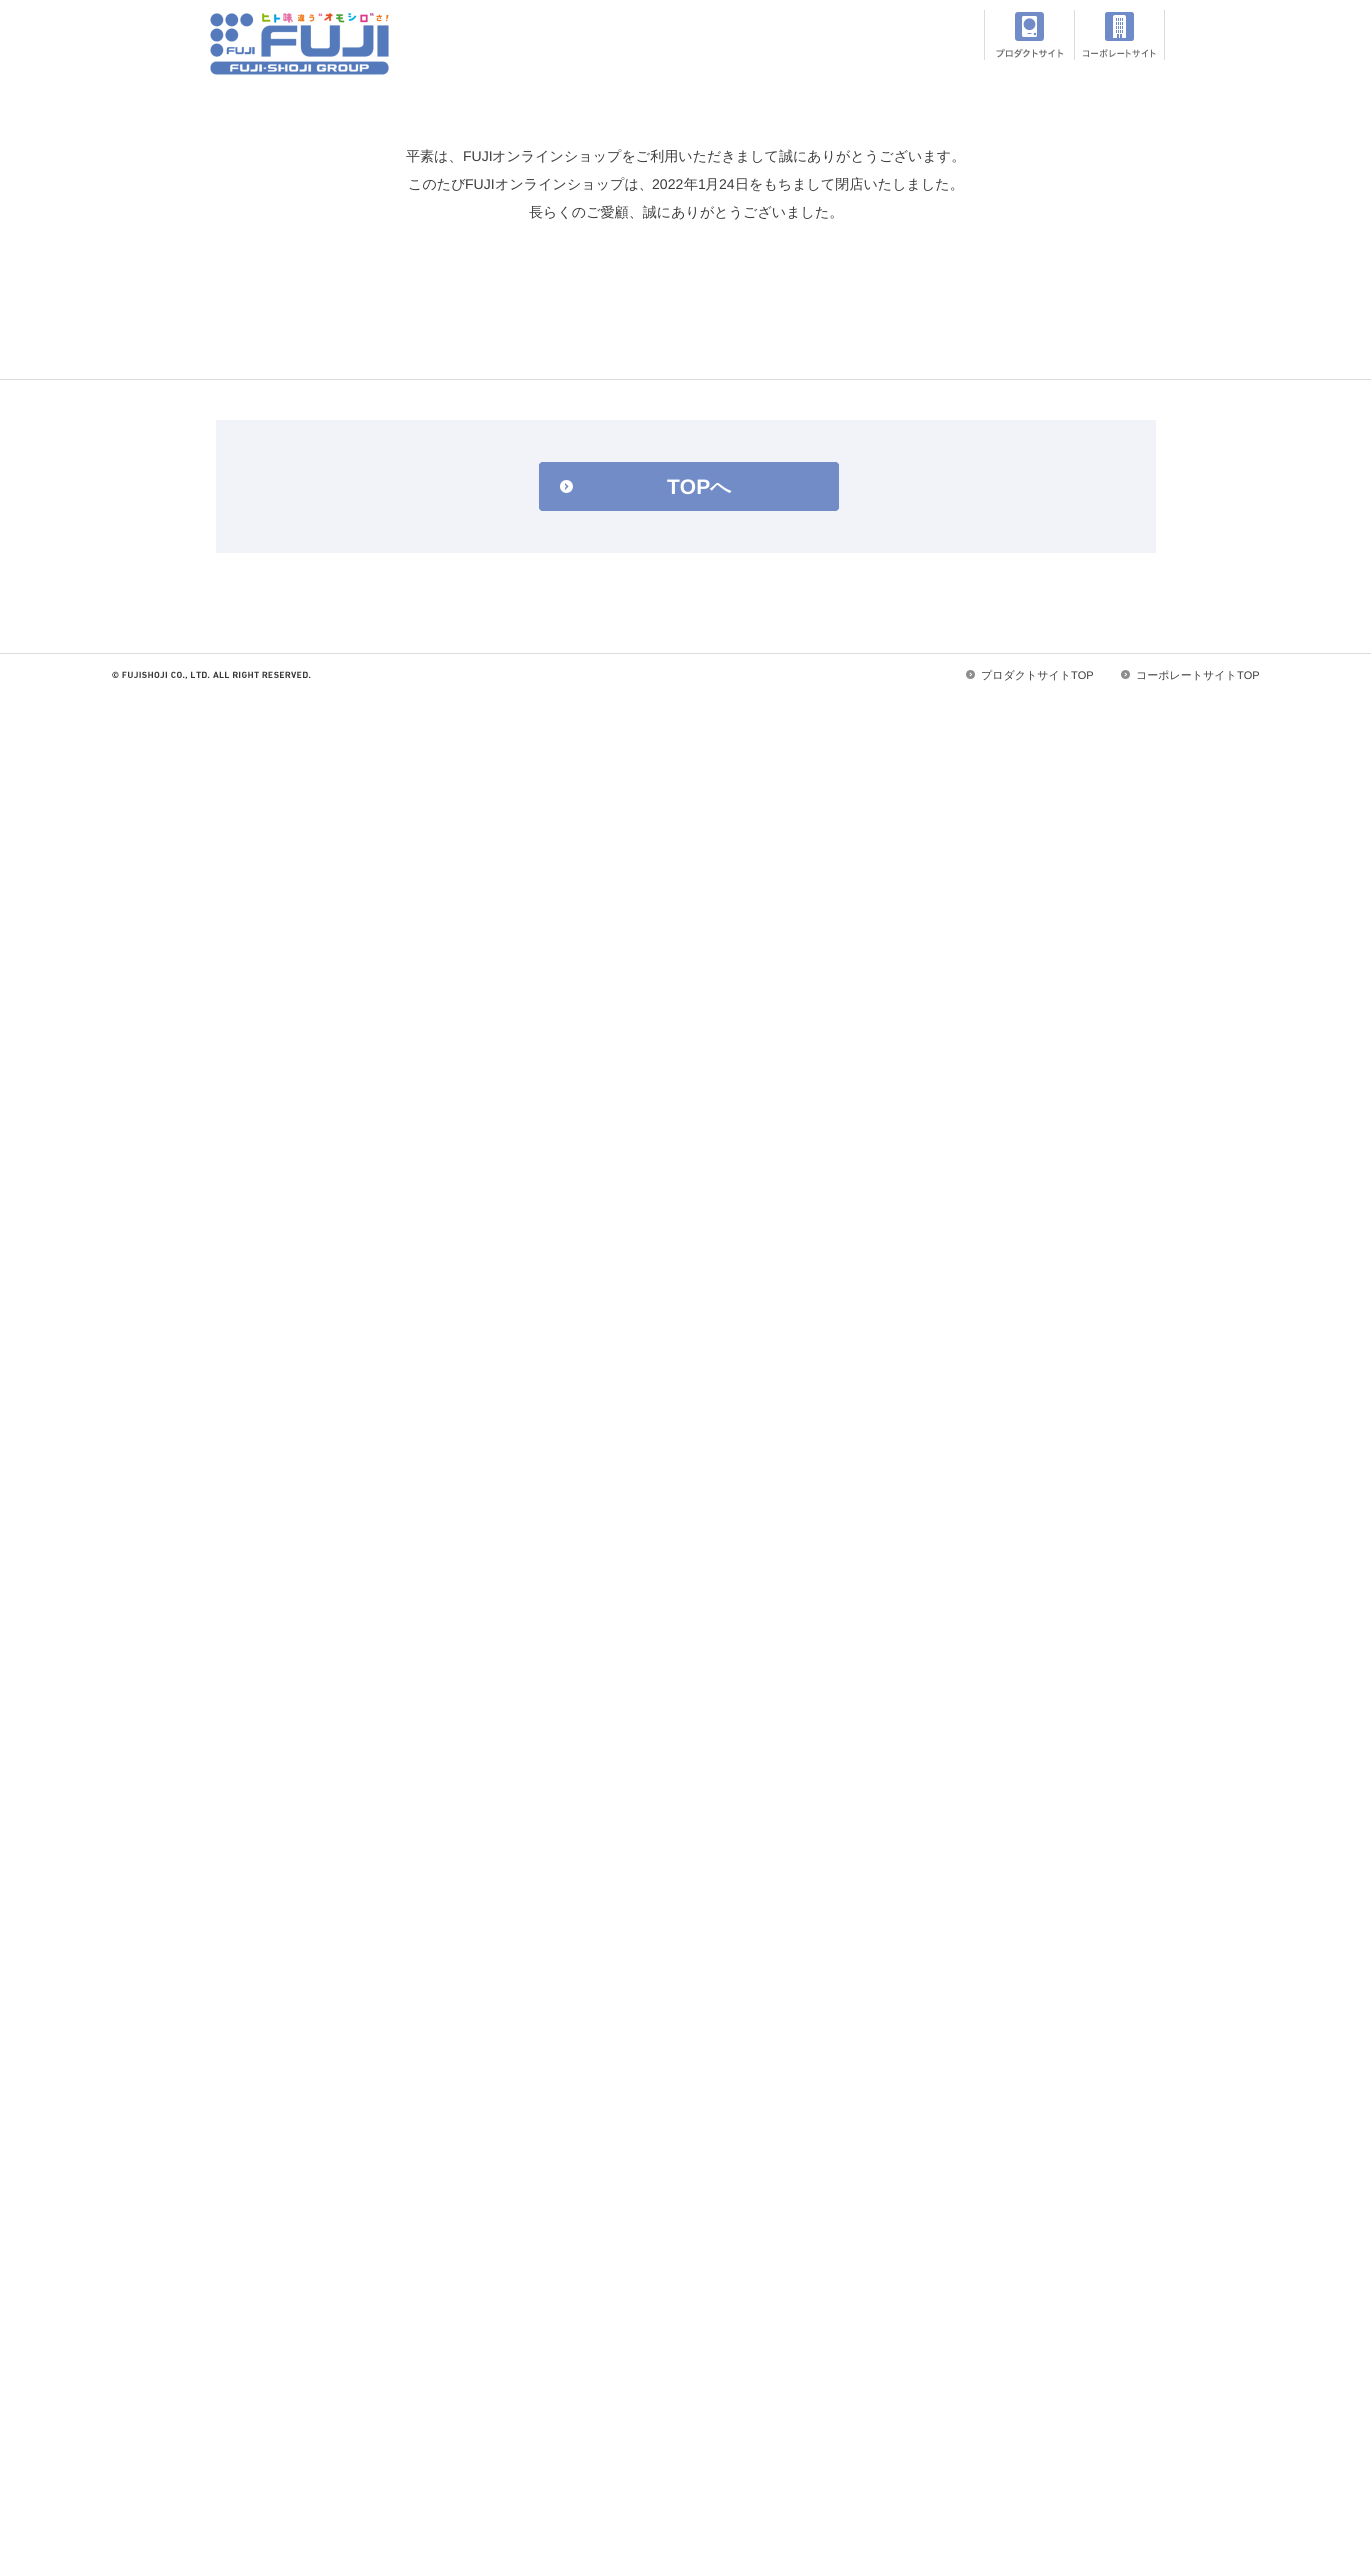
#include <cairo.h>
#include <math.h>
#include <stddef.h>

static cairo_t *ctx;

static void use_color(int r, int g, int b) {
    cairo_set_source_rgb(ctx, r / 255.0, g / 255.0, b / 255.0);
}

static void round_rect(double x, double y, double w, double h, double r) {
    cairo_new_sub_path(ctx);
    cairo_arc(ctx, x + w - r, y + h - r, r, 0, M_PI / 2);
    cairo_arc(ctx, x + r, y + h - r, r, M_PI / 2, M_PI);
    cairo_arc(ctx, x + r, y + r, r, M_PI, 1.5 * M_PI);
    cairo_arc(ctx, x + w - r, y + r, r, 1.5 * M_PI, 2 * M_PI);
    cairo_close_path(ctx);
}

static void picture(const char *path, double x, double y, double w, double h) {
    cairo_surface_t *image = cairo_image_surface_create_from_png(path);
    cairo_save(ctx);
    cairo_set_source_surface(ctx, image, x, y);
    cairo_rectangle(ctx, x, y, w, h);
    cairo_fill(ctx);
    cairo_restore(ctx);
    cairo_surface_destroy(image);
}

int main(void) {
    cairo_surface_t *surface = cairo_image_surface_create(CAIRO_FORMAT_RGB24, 1371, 2569);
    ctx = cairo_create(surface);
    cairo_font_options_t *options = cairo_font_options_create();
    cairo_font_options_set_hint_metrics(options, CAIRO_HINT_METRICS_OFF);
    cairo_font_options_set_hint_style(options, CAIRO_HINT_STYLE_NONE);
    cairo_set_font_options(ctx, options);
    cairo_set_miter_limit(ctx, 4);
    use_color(255, 255, 255);
    cairo_paint(ctx);
    picture("img1.png", 210, 13, 179, 62);
    use_color(220, 220, 220);
    cairo_rectangle(ctx, 984, 10, 1, 50);
    cairo_fill(ctx);
    picture("img2.png", 996, 12, 68, 46);
    cairo_rectangle(ctx, 1164, 10, 1, 50);
    cairo_fill(ctx);
    cairo_rectangle(ctx, 1074, 10, 1, 50);
    cairo_fill(ctx);
    picture("img3.png", 1083, 12, 73, 46);
    cairo_select_font_face(ctx, "WenQuanYi Zen Hei Medium", CAIRO_FONT_SLANT_NORMAL, CAIRO_FONT_WEIGHT_NORMAL);
    cairo_set_font_size(ctx, 14.05);
    use_color(60, 60, 60);
    cairo_move_to(ctx, 406, 161);
    cairo_show_text(ctx, "平素は、");
    cairo_select_font_face(ctx, "Liberation Sans", CAIRO_FONT_SLANT_NORMAL, CAIRO_FONT_WEIGHT_NORMAL);
    cairo_move_to(ctx, 463, 161);
    cairo_show_text(ctx, "FUJI");
    cairo_select_font_face(ctx, "WenQuanYi Zen Hei Medium", CAIRO_FONT_SLANT_NORMAL, CAIRO_FONT_WEIGHT_NORMAL);
    cairo_move_to(ctx, 492, 161);
    cairo_show_text(ctx, "オンラインショップをご利用いただきまして誠にありがとうございます。");
    cairo_move_to(ctx, 408, 189);
    cairo_show_text(ctx, "このたび");
    cairo_select_font_face(ctx, "Liberation Sans", CAIRO_FONT_SLANT_NORMAL, CAIRO_FONT_WEIGHT_NORMAL);
    cairo_move_to(ctx, 465, 189);
    cairo_show_text(ctx, "FUJI");
    cairo_select_font_face(ctx, "WenQuanYi Zen Hei Medium", CAIRO_FONT_SLANT_NORMAL, CAIRO_FONT_WEIGHT_NORMAL);
    cairo_move_to(ctx, 495, 189);
    cairo_show_text(ctx, "オンラインショップは、");
    cairo_select_font_face(ctx, "Liberation Sans", CAIRO_FONT_SLANT_NORMAL, CAIRO_FONT_WEIGHT_NORMAL);
    cairo_move_to(ctx, 652, 189);
    cairo_show_text(ctx, "2022");
    cairo_select_font_face(ctx, "WenQuanYi Zen Hei Medium", CAIRO_FONT_SLANT_NORMAL, CAIRO_FONT_WEIGHT_NORMAL);
    cairo_move_to(ctx, 684, 189);
    cairo_show_text(ctx, "年");
    cairo_select_font_face(ctx, "Liberation Sans", CAIRO_FONT_SLANT_NORMAL, CAIRO_FONT_WEIGHT_NORMAL);
    cairo_move_to(ctx, 698, 189);
    cairo_show_text(ctx, "1");
    cairo_select_font_face(ctx, "WenQuanYi Zen Hei Medium", CAIRO_FONT_SLANT_NORMAL, CAIRO_FONT_WEIGHT_NORMAL);
    cairo_move_to(ctx, 705, 189);
    cairo_show_text(ctx, "月");
    cairo_select_font_face(ctx, "Liberation Sans", CAIRO_FONT_SLANT_NORMAL, CAIRO_FONT_WEIGHT_NORMAL);
    cairo_move_to(ctx, 719, 189);
    cairo_show_text(ctx, "24");
    cairo_select_font_face(ctx, "WenQuanYi Zen Hei Medium", CAIRO_FONT_SLANT_NORMAL, CAIRO_FONT_WEIGHT_NORMAL);
    cairo_move_to(ctx, 735, 189);
    cairo_show_text(ctx, "日をもちまして閉店いたしました。");
    cairo_move_to(ctx, 529, 217);
    cairo_show_text(ctx, "長らくのご愛顧、誠にありがとうございました。");
    use_color(220, 220, 220);
    cairo_rectangle(ctx, 0, 379, 1371, 1);
    cairo_fill(ctx);
    use_color(241, 243, 249);
    cairo_rectangle(ctx, 216, 420, 940, 133);
    cairo_fill(ctx);
    use_color(113, 140, 199);
    round_rect(539, 462, 300, 49, 4);
    cairo_fill(ctx);
    picture("img4.png", 560, 480, 13, 13);
    round_rect(540, 463, 298, 47, 3);
    cairo_stroke(ctx);
    cairo_select_font_face(ctx, "Liberation Sans", CAIRO_FONT_SLANT_NORMAL, CAIRO_FONT_WEIGHT_BOLD);
    cairo_set_font_size(ctx, 21);
    use_color(255, 255, 255);
    cairo_move_to(ctx, 667, 494);
    cairo_show_text(ctx, "TOP");
    cairo_select_font_face(ctx, "WenQuanYi Zen Hei", CAIRO_FONT_SLANT_NORMAL, CAIRO_FONT_WEIGHT_BOLD);
    cairo_move_to(ctx, 710, 494);
    cairo_show_text(ctx, "へ");
    use_color(220, 220, 220);
    cairo_rectangle(ctx, 0, 653, 1371, 1);
    cairo_fill(ctx);
    picture("img5.png", 112, 671, 199, 8);
    picture("img6.png", 966, 670, 9, 9);
    cairo_select_font_face(ctx, "WenQuanYi Zen Hei Medium", CAIRO_FONT_SLANT_NORMAL, CAIRO_FONT_WEIGHT_NORMAL);
    cairo_set_font_size(ctx, 11);
    use_color(60, 60, 60);
    cairo_move_to(ctx, 981, 679);
    cairo_show_text(ctx, "プロダクトサイト");
    cairo_select_font_face(ctx, "Liberation Sans", CAIRO_FONT_SLANT_NORMAL, CAIRO_FONT_WEIGHT_NORMAL);
    cairo_move_to(ctx, 1071, 679);
    cairo_show_text(ctx, "TOP");
    picture("img6.png", 1121, 670, 9, 9);
    cairo_select_font_face(ctx, "WenQuanYi Zen Hei Medium", CAIRO_FONT_SLANT_NORMAL, CAIRO_FONT_WEIGHT_NORMAL);
    cairo_move_to(ctx, 1136, 679);
    cairo_show_text(ctx, "コーポレートサイト");
    cairo_select_font_face(ctx, "Liberation Sans", CAIRO_FONT_SLANT_NORMAL, CAIRO_FONT_WEIGHT_NORMAL);
    cairo_move_to(ctx, 1237, 679);
    cairo_show_text(ctx, "TOP");
    cairo_surface_write_to_png(surface, "result.png");
    cairo_font_options_destroy(options);
    cairo_destroy(ctx);
    cairo_surface_destroy(surface);
    return 0;
}
